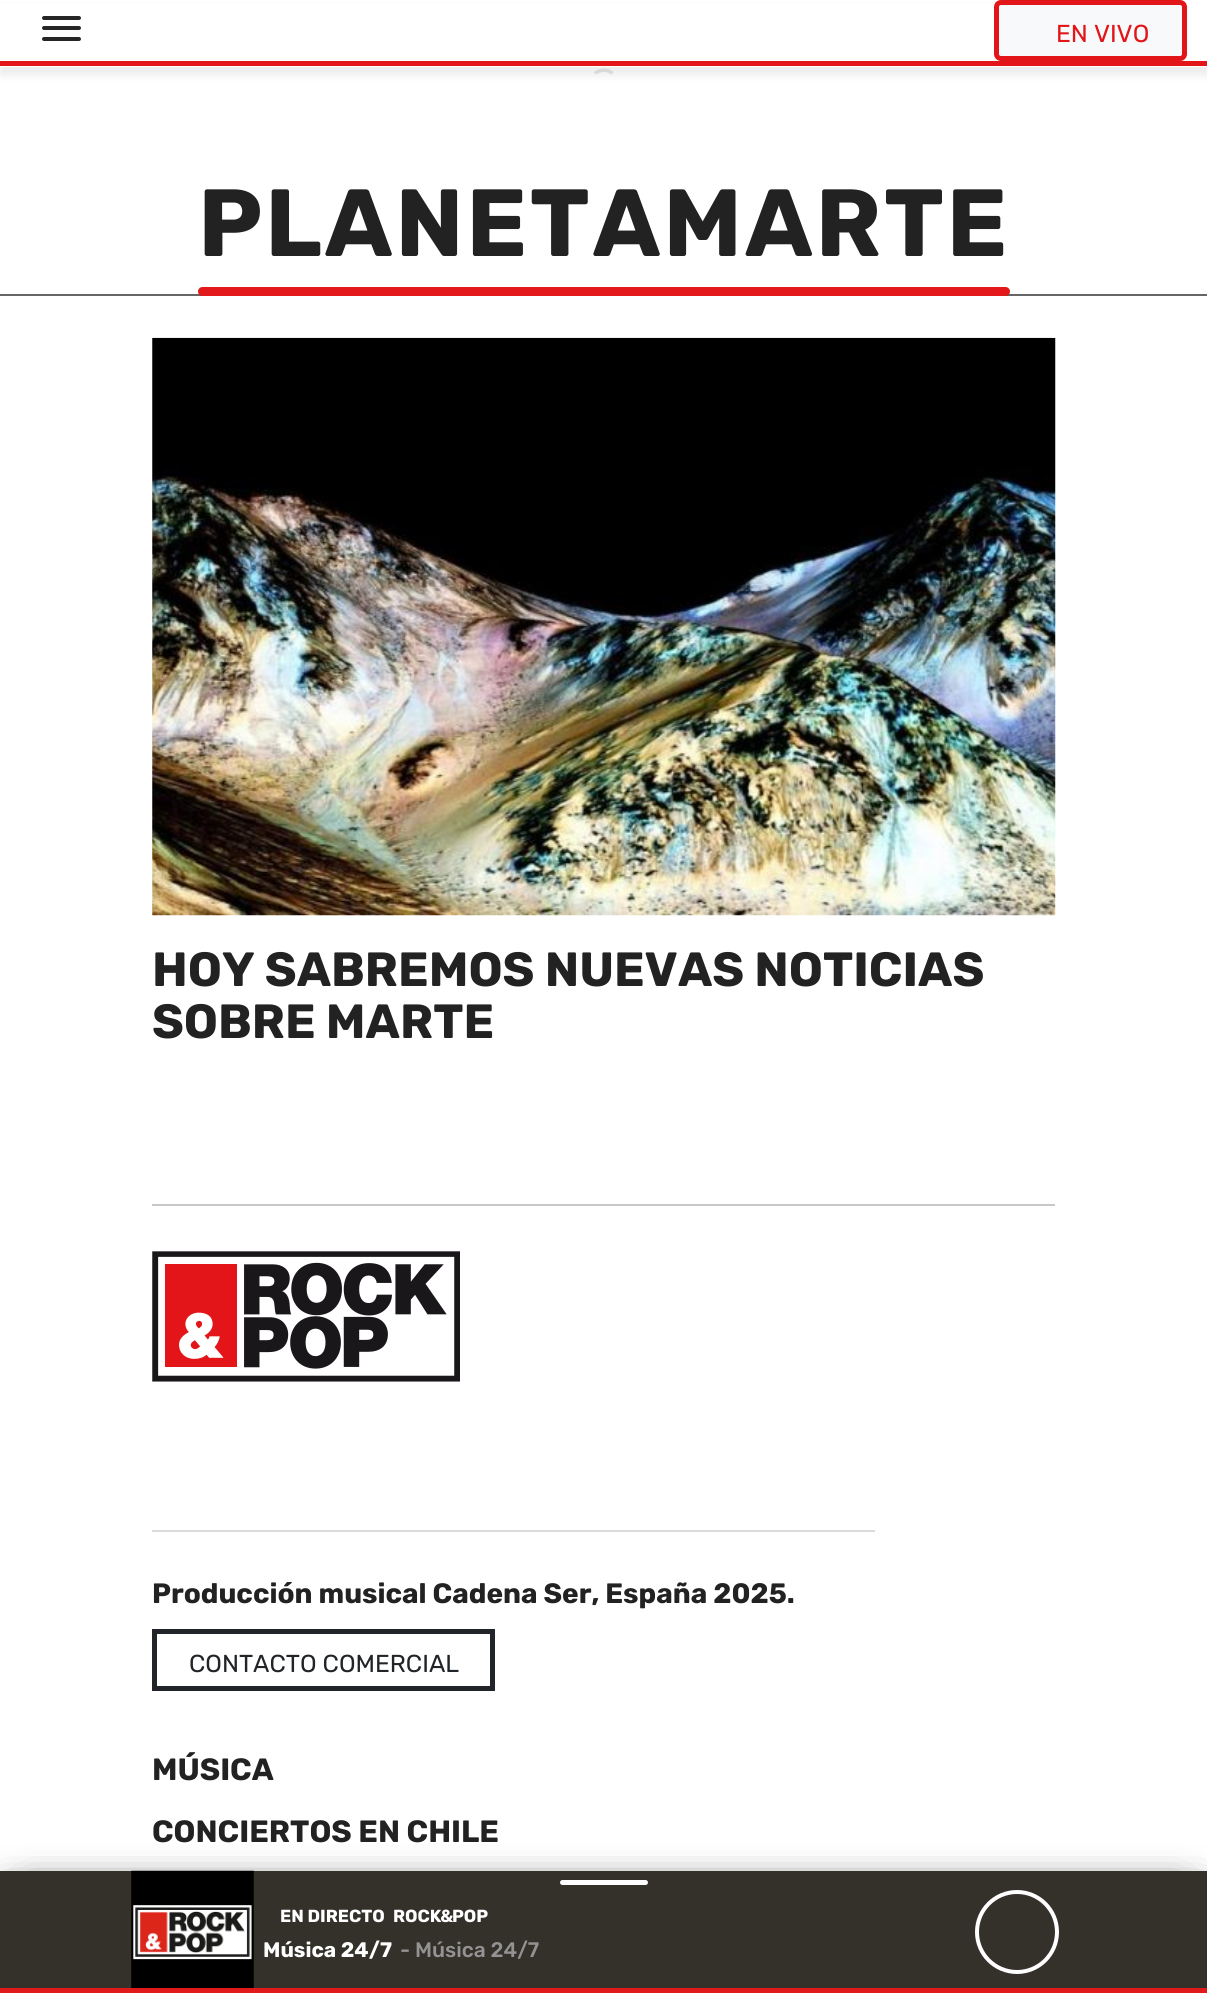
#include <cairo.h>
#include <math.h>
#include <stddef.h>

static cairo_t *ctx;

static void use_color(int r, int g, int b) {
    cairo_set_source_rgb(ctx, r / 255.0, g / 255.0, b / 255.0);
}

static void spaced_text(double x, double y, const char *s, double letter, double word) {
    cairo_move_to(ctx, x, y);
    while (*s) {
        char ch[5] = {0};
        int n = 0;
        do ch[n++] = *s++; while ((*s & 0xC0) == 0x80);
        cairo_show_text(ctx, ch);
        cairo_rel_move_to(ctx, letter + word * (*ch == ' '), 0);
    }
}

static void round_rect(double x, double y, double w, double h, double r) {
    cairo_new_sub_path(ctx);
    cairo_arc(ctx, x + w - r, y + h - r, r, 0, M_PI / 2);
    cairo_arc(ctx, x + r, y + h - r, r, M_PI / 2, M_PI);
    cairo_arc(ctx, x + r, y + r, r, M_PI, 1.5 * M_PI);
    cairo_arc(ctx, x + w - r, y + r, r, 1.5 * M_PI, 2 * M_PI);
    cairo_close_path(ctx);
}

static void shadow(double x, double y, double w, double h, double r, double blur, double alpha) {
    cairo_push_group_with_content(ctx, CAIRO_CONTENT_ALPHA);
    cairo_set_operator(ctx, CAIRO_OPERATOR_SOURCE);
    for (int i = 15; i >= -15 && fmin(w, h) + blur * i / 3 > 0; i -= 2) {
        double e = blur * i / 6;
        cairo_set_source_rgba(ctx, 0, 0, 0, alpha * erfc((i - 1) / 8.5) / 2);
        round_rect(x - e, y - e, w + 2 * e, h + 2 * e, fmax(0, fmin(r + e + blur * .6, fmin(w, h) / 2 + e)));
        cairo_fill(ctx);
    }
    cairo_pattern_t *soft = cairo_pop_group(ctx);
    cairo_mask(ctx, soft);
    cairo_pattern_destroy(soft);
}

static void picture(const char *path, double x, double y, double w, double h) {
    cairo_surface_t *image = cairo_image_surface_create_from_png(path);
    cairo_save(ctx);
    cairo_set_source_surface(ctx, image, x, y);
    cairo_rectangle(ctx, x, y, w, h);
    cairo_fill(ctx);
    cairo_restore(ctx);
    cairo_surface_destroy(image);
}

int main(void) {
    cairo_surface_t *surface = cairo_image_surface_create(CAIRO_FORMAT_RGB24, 1207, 1993);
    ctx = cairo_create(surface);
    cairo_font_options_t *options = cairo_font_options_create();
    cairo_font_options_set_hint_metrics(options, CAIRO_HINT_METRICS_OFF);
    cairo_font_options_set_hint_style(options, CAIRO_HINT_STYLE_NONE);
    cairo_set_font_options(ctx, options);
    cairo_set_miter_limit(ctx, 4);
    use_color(255, 255, 255);
    cairo_paint(ctx);
    cairo_new_path(ctx);
    cairo_move_to(ctx, 595, 73.5);
    cairo_curve_to(ctx, 600, 69, 607.5, 69, 612.5, 73.5);
    use_color(230, 230, 230);
    cairo_set_line_width(ctx, 3.5);
    cairo_stroke(ctx);
    use_color(34, 34, 34);
    shadow(0, 9, 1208, 66, 0, 4.5, 0.09);
    use_color(255, 255, 255);
    cairo_rectangle(ctx, 0, 4, 1207, 63);
    cairo_fill(ctx);
    use_color(226, 22, 24);
    cairo_rectangle(ctx, 0, 61, 1207, 5);
    cairo_fill(ctx);
    use_color(38, 38, 38);
    round_rect(42, 16, 39, 4, 2);
    cairo_fill(ctx);
    round_rect(42, 26, 39, 4, 2);
    cairo_fill(ctx);
    round_rect(42, 37, 39, 4, 2);
    cairo_fill(ctx);
    use_color(248, 249, 250);
    round_rect(996.5, 2.5, 188, 56, 4.5);
    cairo_fill_preserve(ctx);
    use_color(226, 22, 24);
    cairo_set_line_width(ctx, 5);
    cairo_stroke(ctx);
    cairo_select_font_face(ctx, "Rubik", CAIRO_FONT_SLANT_NORMAL, CAIRO_FONT_WEIGHT_NORMAL);
    cairo_set_font_size(ctx, 24.5);
    cairo_move_to(ctx, 1056, 42);
    cairo_show_text(ctx, "EN VIVO");
    use_color(102, 102, 102);
    cairo_rectangle(ctx, 0, 294, 1207, 2);
    cairo_fill(ctx);
    cairo_select_font_face(ctx, "Rubik", CAIRO_FONT_SLANT_NORMAL, CAIRO_FONT_WEIGHT_BOLD);
    cairo_set_font_size(ctx, 95.25);
    use_color(34, 34, 34);
    spaced_text(198, 256, "PLANETAMARTE", 2.6, 0);
    use_color(226, 24, 26);
    round_rect(198, 287, 812, 9, 4.5);
    cairo_fill(ctx);
    picture("img1.png", 152, 337, 904, 579);
    cairo_set_font_size(ctx, 48);
    use_color(34, 34, 34);
    cairo_move_to(ctx, 152, 986);
    cairo_show_text(ctx, "HOY SABREMOS NUEVAS NOTICIAS");
    cairo_move_to(ctx, 152, 1038);
    cairo_show_text(ctx, "SOBRE MARTE");
    use_color(200, 200, 200);
    cairo_rectangle(ctx, 152, 1204, 903, 2);
    cairo_fill(ctx);
    picture("img2.png", 152, 1251, 308, 131);
    use_color(218, 218, 218);
    cairo_rectangle(ctx, 152, 1530, 723, 2);
    cairo_fill(ctx);
    cairo_set_font_size(ctx, 28);
    use_color(34, 34, 34);
    cairo_move_to(ctx, 152, 1603);
    cairo_show_text(ctx, "Producción musical Cadena Ser, España 2025.");
    cairo_rectangle(ctx, 154.5, 1631.5, 338, 57);
    use_color(33, 37, 41);
    cairo_stroke(ctx);
    cairo_select_font_face(ctx, "Rubik", CAIRO_FONT_SLANT_NORMAL, CAIRO_FONT_WEIGHT_NORMAL);
    cairo_set_font_size(ctx, 24.5);
    cairo_move_to(ctx, 189, 1672);
    cairo_show_text(ctx, "CONTACTO COMERCIAL");
    cairo_select_font_face(ctx, "Rubik", CAIRO_FONT_SLANT_NORMAL, CAIRO_FONT_WEIGHT_BOLD);
    cairo_set_font_size(ctx, 30.75);
    use_color(34, 34, 34);
    cairo_move_to(ctx, 152, 1780);
    cairo_show_text(ctx, "MÚSICA");
    cairo_move_to(ctx, 152, 1842);
    cairo_show_text(ctx, "CONCIERTOS EN CHILE");
    use_color(0, 0, 0);
    shadow(30, 1888, 1172, 88, 0, 17.5, 0.5);
    shadow(5, 1888, 1173, 88, 0, 17.5, 0.5);
    use_color(52, 48, 42);
    cairo_rectangle(ctx, 0, 1871, 1207, 117);
    cairo_fill(ctx);
    use_color(255, 255, 255);
    round_rect(560, 1880, 88, 5, 2.5);
    cairo_fill(ctx);
    picture("img3.png", 131, 1870, 123, 118);
    cairo_set_font_size(ctx, 17.5);
    cairo_move_to(ctx, 280, 1922);
    cairo_show_text(ctx, "EN DIRECTO");
    spaced_text(393, 1922, "ROCK & POP", 0, -5);
    cairo_set_font_size(ctx, 21);
    cairo_move_to(ctx, 263, 1957);
    cairo_show_text(ctx, "Música 24/7");
    cairo_select_font_face(ctx, "Rubik Medium", CAIRO_FONT_SLANT_NORMAL, CAIRO_FONT_WEIGHT_NORMAL);
    use_color(147, 147, 147);
    cairo_move_to(ctx, 400, 1957);
    cairo_show_text(ctx, "- Música 24/7");
    cairo_new_path(ctx);
    cairo_arc(ctx, 1017, 1932, 40, 0, 2 * M_PI);
    use_color(255, 255, 255);
    cairo_set_line_width(ctx, 4);
    cairo_stroke(ctx);
    use_color(224, 25, 26);
    cairo_rectangle(ctx, 0, 1988, 1207, 5);
    cairo_fill(ctx);
    cairo_surface_write_to_png(surface, "result.png");
    cairo_font_options_destroy(options);
    cairo_destroy(ctx);
    cairo_surface_destroy(surface);
    return 0;
}
